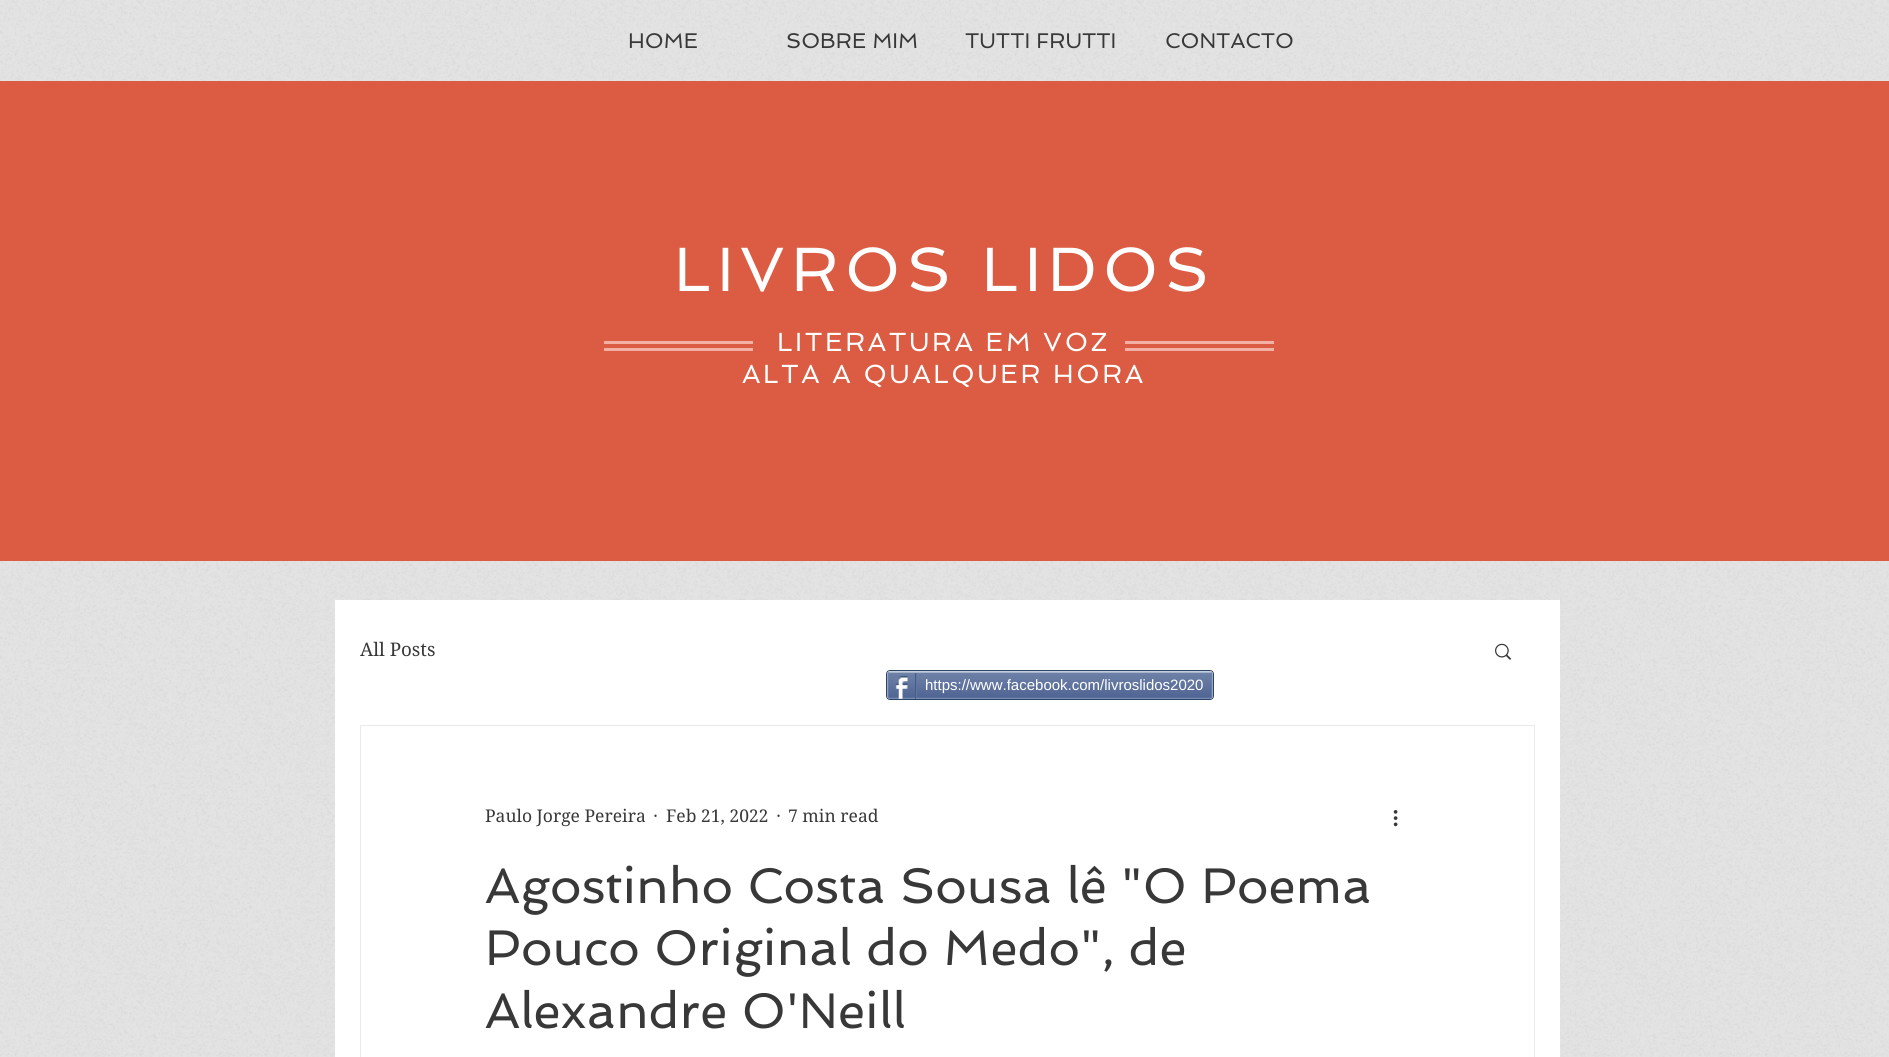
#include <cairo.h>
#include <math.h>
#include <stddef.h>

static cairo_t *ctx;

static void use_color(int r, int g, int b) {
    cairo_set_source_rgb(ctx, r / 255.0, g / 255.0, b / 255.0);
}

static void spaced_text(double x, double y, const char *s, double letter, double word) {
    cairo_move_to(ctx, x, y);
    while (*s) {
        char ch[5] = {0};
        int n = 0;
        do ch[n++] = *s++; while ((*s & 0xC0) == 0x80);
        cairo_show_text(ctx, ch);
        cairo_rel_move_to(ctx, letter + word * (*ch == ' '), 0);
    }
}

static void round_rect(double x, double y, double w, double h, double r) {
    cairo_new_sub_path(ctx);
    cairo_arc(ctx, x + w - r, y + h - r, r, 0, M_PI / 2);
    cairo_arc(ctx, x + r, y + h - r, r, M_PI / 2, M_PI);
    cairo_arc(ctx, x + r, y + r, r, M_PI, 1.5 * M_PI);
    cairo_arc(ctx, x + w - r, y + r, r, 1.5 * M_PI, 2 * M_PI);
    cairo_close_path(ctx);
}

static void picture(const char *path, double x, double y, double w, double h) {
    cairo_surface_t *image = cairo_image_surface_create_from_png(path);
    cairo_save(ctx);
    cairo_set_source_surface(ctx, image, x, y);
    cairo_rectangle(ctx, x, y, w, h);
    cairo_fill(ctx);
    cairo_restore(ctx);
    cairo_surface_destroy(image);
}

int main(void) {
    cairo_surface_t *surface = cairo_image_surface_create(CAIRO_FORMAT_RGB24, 1889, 1057);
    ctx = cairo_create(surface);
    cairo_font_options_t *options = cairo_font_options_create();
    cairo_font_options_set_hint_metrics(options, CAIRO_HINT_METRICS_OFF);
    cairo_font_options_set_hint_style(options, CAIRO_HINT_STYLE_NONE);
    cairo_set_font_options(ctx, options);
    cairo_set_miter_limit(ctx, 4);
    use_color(227, 227, 227);
    cairo_paint(ctx);
    picture("img1.png", 0, 0, 1889, 1057);
    cairo_select_font_face(ctx, "Spinnaker", CAIRO_FONT_SLANT_NORMAL, CAIRO_FONT_WEIGHT_NORMAL);
    cairo_set_font_size(ctx, 21.25);
    use_color(57, 56, 56);
    cairo_move_to(ctx, 628, 48);
    cairo_show_text(ctx, "HOME");
    cairo_move_to(ctx, 786, 48);
    cairo_show_text(ctx, "SOBRE MIM");
    cairo_move_to(ctx, 965, 48);
    cairo_show_text(ctx, "TUTTI FRUTTI");
    cairo_move_to(ctx, 1165, 48);
    cairo_show_text(ctx, "CONTACTO");
    use_color(219, 91, 67);
    cairo_rectangle(ctx, 0, 81, 1889, 480);
    cairo_fill(ctx);
    cairo_set_font_size(ctx, 62.5);
    use_color(255, 255, 255);
    spaced_text(674, 291, "LIVROS LIDOS", 6.25, 0);
    use_color(244, 176, 164);
    cairo_rectangle(ctx, 604, 341, 149, 3);
    cairo_fill(ctx);
    cairo_rectangle(ctx, 604, 348, 149, 3);
    cairo_fill(ctx);
    cairo_set_font_size(ctx, 26.25);
    use_color(255, 255, 255);
    spaced_text(777, 351, "LITERATURA EM VOZ", 2.6, 0);
    spaced_text(742, 383, "ALTA A QUALQUER HORA", 2.6, 0);
    use_color(244, 176, 164);
    cairo_rectangle(ctx, 1125, 341, 149, 3);
    cairo_fill(ctx);
    cairo_rectangle(ctx, 1125, 348, 149, 3);
    cairo_fill(ctx);
    use_color(255, 255, 255);
    cairo_rectangle(ctx, 335, 600, 1225, 457);
    cairo_fill(ctx);
    cairo_select_font_face(ctx, "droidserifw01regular", CAIRO_FONT_SLANT_NORMAL, CAIRO_FONT_WEIGHT_NORMAL);
    cairo_set_font_size(ctx, 18.75);
    use_color(57, 56, 56);
    cairo_move_to(ctx, 360, 656);
    cairo_show_text(ctx, "All Posts");
    picture("img2.png", 1495, 643, 17, 17);
    cairo_rectangle(ctx, 360.5, 725.5, 1174, 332);
    use_color(234, 234, 234);
    cairo_set_line_width(ctx, 1);
    cairo_stroke(ctx);
    cairo_set_font_size(ctx, 17.5);
    use_color(57, 56, 56);
    cairo_move_to(ctx, 485, 822);
    cairo_show_text(ctx, "Paulo Jorge Pereira");
    cairo_move_to(ctx, 653, 822);
    cairo_show_text(ctx, "·");
    cairo_move_to(ctx, 666, 822);
    cairo_show_text(ctx, "Feb 21, 2022");
    cairo_move_to(ctx, 776, 822);
    cairo_show_text(ctx, "·");
    cairo_move_to(ctx, 788, 822);
    cairo_show_text(ctx, "7 min read");
    picture("img3.png", 1393, 810, 5, 17);
    cairo_select_font_face(ctx, "Spinnaker", CAIRO_FONT_SLANT_NORMAL, CAIRO_FONT_WEIGHT_NORMAL);
    cairo_set_font_size(ctx, 50);
    cairo_move_to(ctx, 485, 903);
    cairo_show_text(ctx, "Agostinho Costa Sousa lê \"O Poema");
    cairo_move_to(ctx, 485, 965);
    cairo_show_text(ctx, "Pouco Original do Medo\", de");
    cairo_move_to(ctx, 485, 1028);
    cairo_show_text(ctx, "Alexandre O'Neill");
    round_rect(886.5, 670.5, 327, 29, 3.5);
    use_color(45, 69, 101);
    cairo_stroke(ctx);
    picture("img4.png", 887, 672, 326, 27);
    cairo_new_path(ctx);
    cairo_move_to(ctx, 888.5, 672.5);
    cairo_line_to(ctx, 890, 672);
    cairo_line_to(ctx, 1210, 672);
    cairo_line_to(ctx, 1211.5, 672.5);
    use_color(154, 171, 198);
    cairo_set_line_width(ctx, 1.2);
    cairo_stroke(ctx);
    cairo_new_path(ctx);
    cairo_move_to(ctx, 1211.5, 672.5);
    cairo_line_to(ctx, 1212, 674);
    cairo_line_to(ctx, 1212, 696);
    cairo_line_to(ctx, 1211.5, 697.5);
    use_color(111, 131, 173);
    cairo_stroke(ctx);
    cairo_new_path(ctx);
    cairo_move_to(ctx, 1211.5, 697.5);
    cairo_line_to(ctx, 1210, 698);
    cairo_line_to(ctx, 890, 698);
    cairo_line_to(ctx, 888.5, 697.5);
    use_color(97, 118, 163);
    cairo_stroke(ctx);
    cairo_new_path(ctx);
    cairo_move_to(ctx, 888.5, 697.5);
    cairo_line_to(ctx, 888, 696);
    cairo_line_to(ctx, 888, 674);
    cairo_line_to(ctx, 888.5, 672.5);
    use_color(111, 131, 173);
    cairo_stroke(ctx);
    picture("img5.png", 895, 676, 13, 23);
    use_color(66, 94, 133);
    cairo_rectangle(ctx, 915, 673, 1, 26);
    cairo_fill(ctx);
    cairo_select_font_face(ctx, "Liberation Sans", CAIRO_FONT_SLANT_NORMAL, CAIRO_FONT_WEIGHT_NORMAL);
    cairo_set_font_size(ctx, 15);
    use_color(255, 255, 255);
    cairo_move_to(ctx, 925, 690);
    cairo_show_text(ctx, "https://www.facebook.com/livroslidos2020");
    use_color(97, 118, 163);
    cairo_rectangle(ctx, 916, 673, 1, 25);
    cairo_fill(ctx);
    cairo_surface_write_to_png(surface, "result.png");
    cairo_font_options_destroy(options);
    cairo_destroy(ctx);
    cairo_surface_destroy(surface);
    return 0;
}
